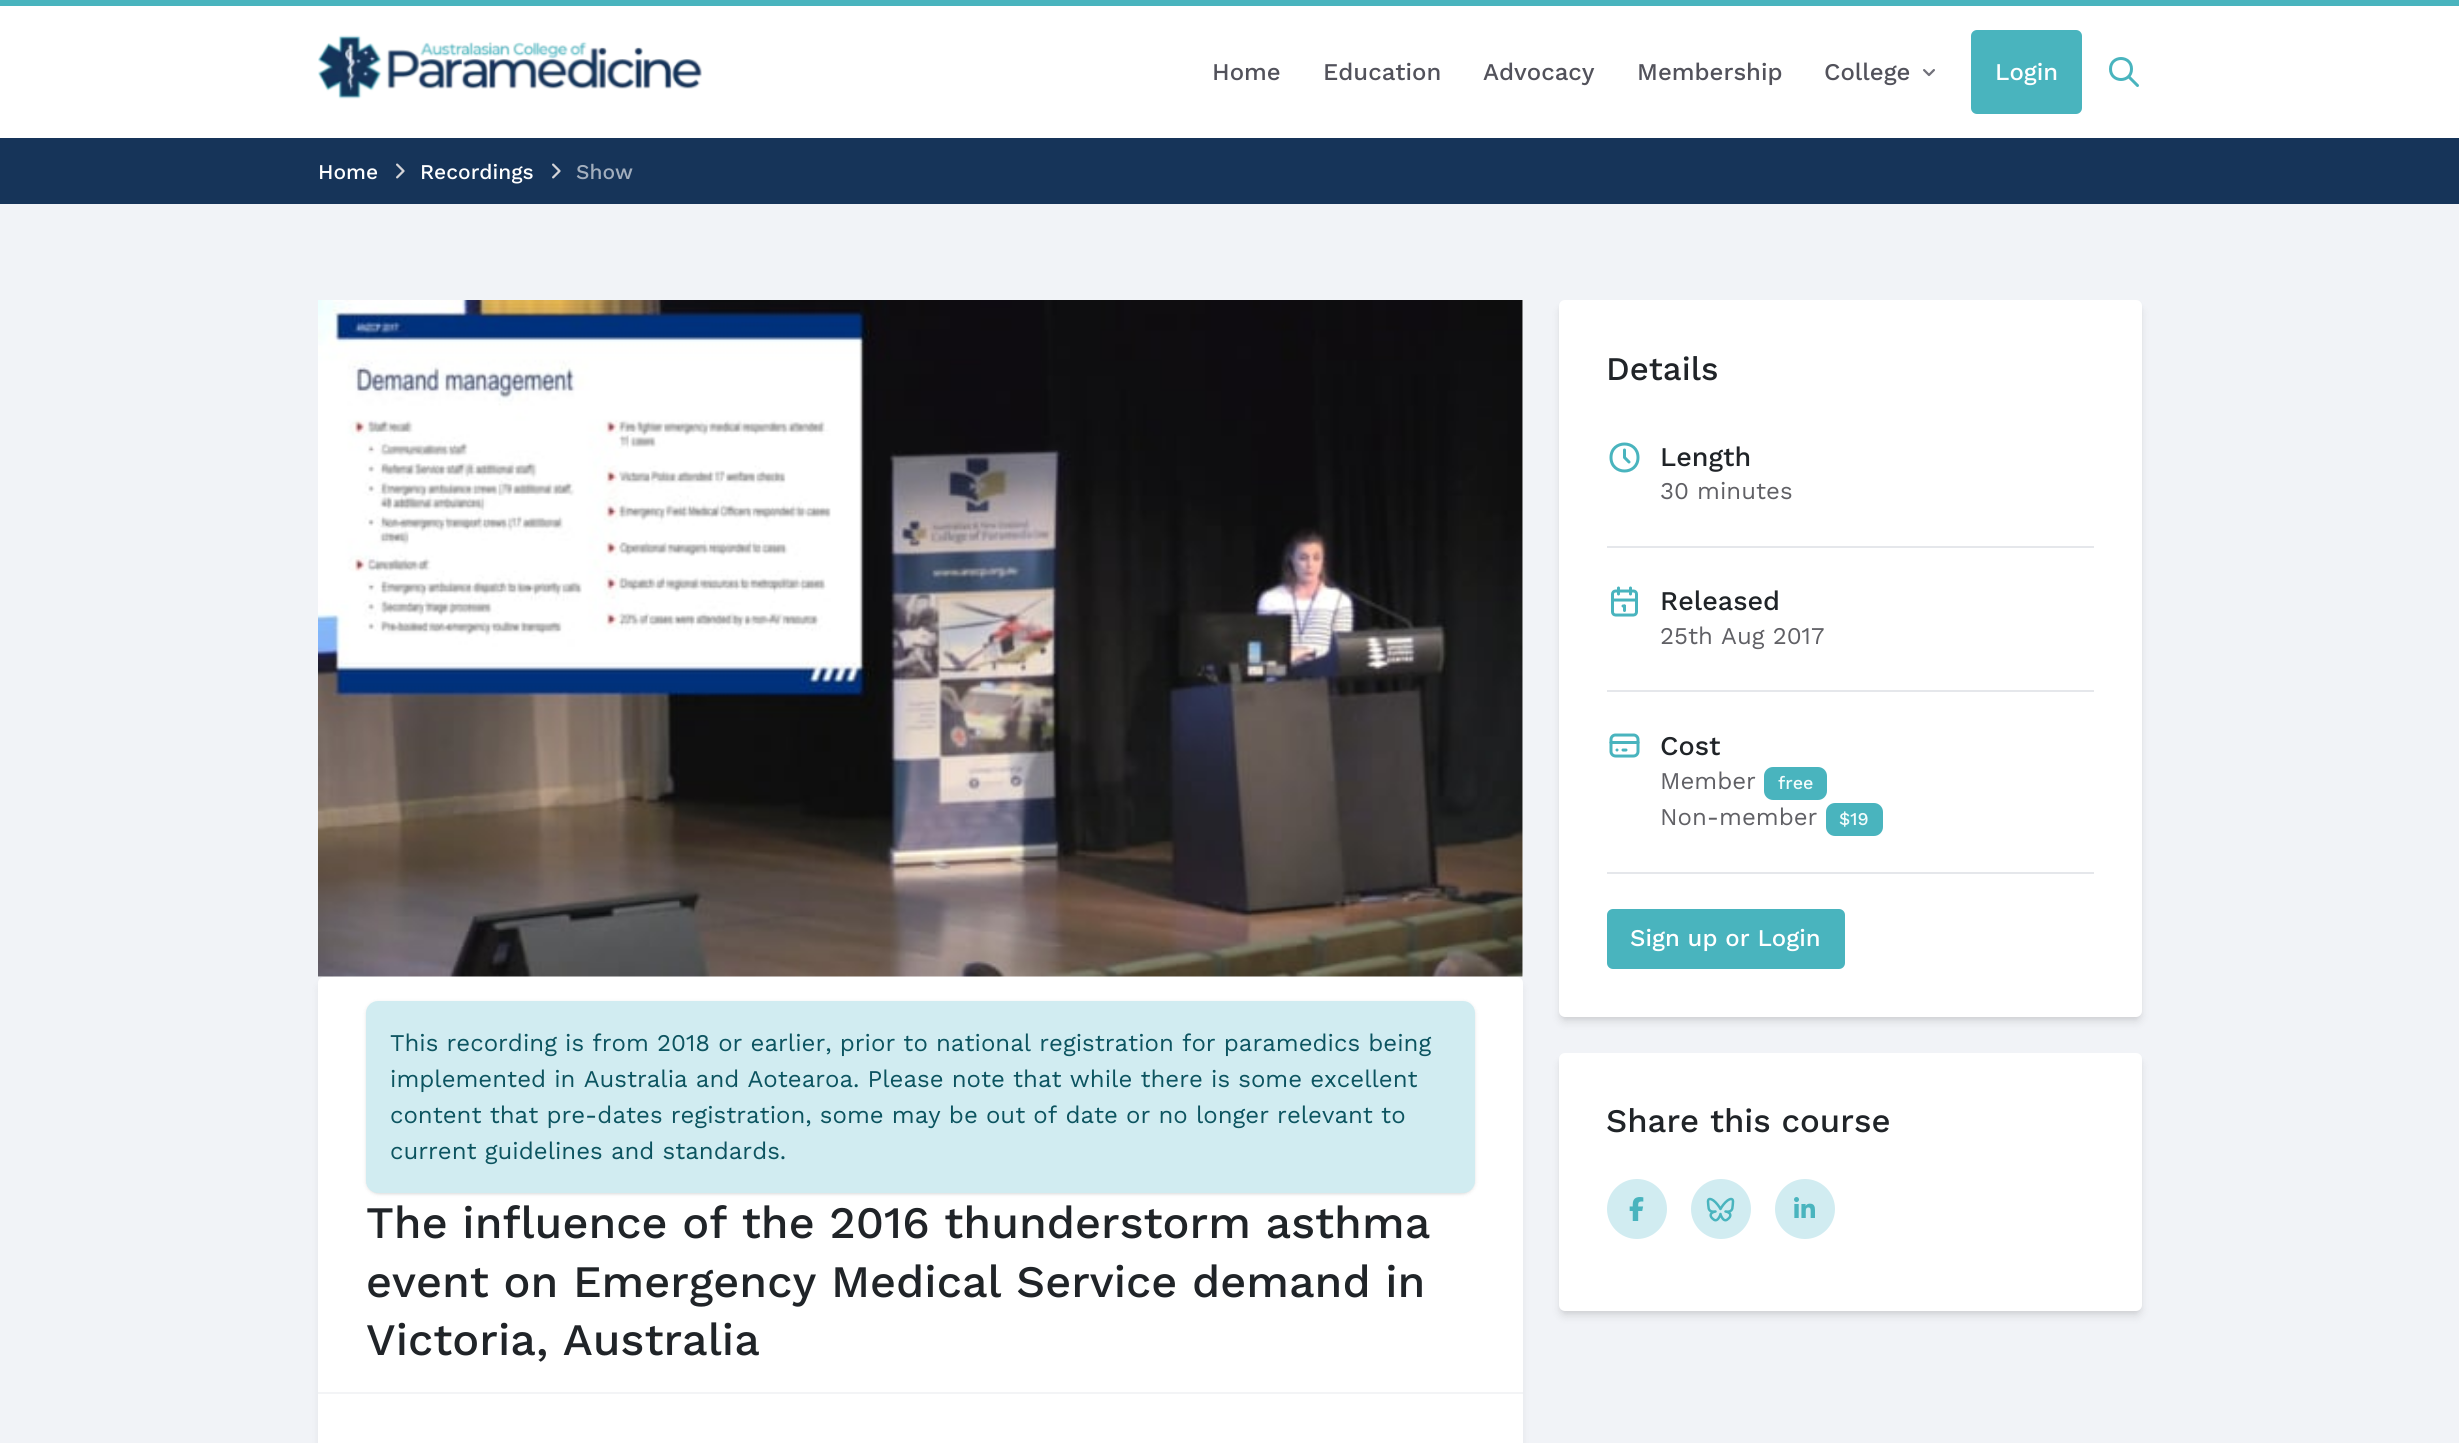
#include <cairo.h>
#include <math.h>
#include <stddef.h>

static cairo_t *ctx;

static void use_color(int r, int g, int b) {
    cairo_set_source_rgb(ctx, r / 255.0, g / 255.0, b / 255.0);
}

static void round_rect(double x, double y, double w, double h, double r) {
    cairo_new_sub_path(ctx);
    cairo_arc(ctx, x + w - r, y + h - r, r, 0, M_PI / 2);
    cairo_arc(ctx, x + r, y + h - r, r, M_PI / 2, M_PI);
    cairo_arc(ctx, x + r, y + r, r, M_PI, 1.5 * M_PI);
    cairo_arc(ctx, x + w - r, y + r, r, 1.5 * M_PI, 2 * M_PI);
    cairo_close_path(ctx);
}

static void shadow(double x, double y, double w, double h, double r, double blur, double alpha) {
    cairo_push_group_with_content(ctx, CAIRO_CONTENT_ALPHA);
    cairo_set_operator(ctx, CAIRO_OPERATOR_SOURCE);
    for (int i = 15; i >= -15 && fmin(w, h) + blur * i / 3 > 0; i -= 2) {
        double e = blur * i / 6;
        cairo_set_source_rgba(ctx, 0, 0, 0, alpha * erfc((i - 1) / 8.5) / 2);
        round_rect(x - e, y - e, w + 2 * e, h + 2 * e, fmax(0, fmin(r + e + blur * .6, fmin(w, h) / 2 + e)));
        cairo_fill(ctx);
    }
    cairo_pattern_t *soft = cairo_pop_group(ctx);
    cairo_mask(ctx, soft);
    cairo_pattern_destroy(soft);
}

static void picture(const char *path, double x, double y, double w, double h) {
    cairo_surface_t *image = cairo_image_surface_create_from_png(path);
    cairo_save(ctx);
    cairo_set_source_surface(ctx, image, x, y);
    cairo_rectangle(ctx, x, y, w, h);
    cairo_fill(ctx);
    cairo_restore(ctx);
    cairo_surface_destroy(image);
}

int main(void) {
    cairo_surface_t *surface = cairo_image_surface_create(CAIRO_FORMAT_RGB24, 2459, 1443);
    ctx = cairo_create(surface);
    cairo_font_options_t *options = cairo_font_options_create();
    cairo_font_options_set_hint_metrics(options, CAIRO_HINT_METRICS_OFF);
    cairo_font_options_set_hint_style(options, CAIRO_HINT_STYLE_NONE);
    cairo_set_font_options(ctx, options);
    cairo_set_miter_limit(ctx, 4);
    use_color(255, 255, 255);
    cairo_paint(ctx);
    use_color(73, 180, 190);
    cairo_rectangle(ctx, 0, 0, 2459, 6);
    cairo_fill(ctx);
    picture("img1.png", 318, 35, 384, 64);
    cairo_select_font_face(ctx, "Work Sans Medium", CAIRO_FONT_SLANT_NORMAL, CAIRO_FONT_WEIGHT_NORMAL);
    cairo_set_font_size(ctx, 24);
    use_color(82, 82, 91);
    cairo_move_to(ctx, 1212, 80);
    cairo_show_text(ctx, "Home");
    cairo_move_to(ctx, 1323, 80);
    cairo_show_text(ctx, "Education");
    cairo_move_to(ctx, 1483, 80);
    cairo_show_text(ctx, "Advocacy");
    cairo_move_to(ctx, 1637, 80);
    cairo_show_text(ctx, "Membership");
    cairo_move_to(ctx, 1824, 80);
    cairo_show_text(ctx, "College");
    picture("img2.png", 1923, 69, 12, 8);
    use_color(73, 180, 190);
    round_rect(1971, 30, 111, 84, 6);
    cairo_fill(ctx);
    use_color(255, 255, 255);
    cairo_move_to(ctx, 1995, 80);
    cairo_show_text(ctx, "Login");
    cairo_new_path(ctx);
    cairo_move_to(ctx, 2110.5, 69);
    cairo_curve_to(ctx, 2110.5, 83, 2131.5, 83, 2131.5, 69);
    cairo_curve_to(ctx, 2131.5, 55, 2110.5, 55, 2110.5, 69);
    cairo_move_to(ctx, 2137.5, 85.5);
    cairo_line_to(ctx, 2128.5, 76.5);
    use_color(73, 180, 190);
    cairo_set_line_width(ctx, 3);
    cairo_set_line_cap(ctx, CAIRO_LINE_CAP_ROUND);
    cairo_set_line_join(ctx, CAIRO_LINE_JOIN_ROUND);
    cairo_stroke(ctx);
    use_color(22, 52, 89);
    cairo_rectangle(ctx, 0, 138, 2459, 66);
    cairo_fill(ctx);
    cairo_set_font_size(ctx, 21);
    use_color(255, 255, 255);
    cairo_move_to(ctx, 318, 179);
    cairo_show_text(ctx, "Home");
    picture("img3.png", 396, 163, 9, 16);
    cairo_move_to(ctx, 420, 179);
    cairo_show_text(ctx, "Recordings");
    picture("img3.png", 552, 163, 9, 16);
    use_color(162, 174, 189);
    cairo_move_to(ctx, 576, 179);
    cairo_show_text(ctx, "Show");
    use_color(241, 243, 247);
    cairo_rectangle(ctx, 0, 204, 2459, 1239);
    cairo_fill(ctx);
    use_color(0, 0, 0);
    shadow(1562, 306, 577, 711, 3, 3, 0.1);
    shadow(1560, 308, 581, 714, 5, 4.5, 0.1);
    use_color(255, 255, 255);
    round_rect(1559, 300, 583, 717, 6);
    cairo_fill(ctx);
    cairo_set_font_size(ctx, 33);
    use_color(32, 36, 40);
    cairo_move_to(ctx, 1606, 380);
    cairo_show_text(ctx, "Details");
    cairo_new_path(ctx);
    cairo_move_to(ctx, 1611, 457.5);
    cairo_curve_to(ctx, 1611, 475.5, 1638, 475.5, 1638, 457.5);
    cairo_curve_to(ctx, 1638, 439.5, 1611, 439.5, 1611, 457.5);
    cairo_move_to(ctx, 1624.5, 450);
    cairo_line_to(ctx, 1624.5, 457.5);
    cairo_line_to(ctx, 1629, 462);
    use_color(73, 180, 190);
    cairo_stroke(ctx);
    cairo_set_font_size(ctx, 27);
    use_color(32, 36, 40);
    cairo_move_to(ctx, 1660, 466);
    cairo_show_text(ctx, "Length");
    cairo_select_font_face(ctx, "Work Sans", CAIRO_FONT_SLANT_NORMAL, CAIRO_FONT_WEIGHT_NORMAL);
    cairo_set_font_size(ctx, 24);
    use_color(96, 96, 101);
    cairo_move_to(ctx, 1660, 499);
    cairo_show_text(ctx, "30 minutes");
    use_color(229, 231, 235);
    cairo_rectangle(ctx, 1607, 546, 487, 2);
    cairo_fill(ctx);
    picture("img4.png", 1611, 586, 27, 31);
    cairo_select_font_face(ctx, "Work Sans Medium", CAIRO_FONT_SLANT_NORMAL, CAIRO_FONT_WEIGHT_NORMAL);
    cairo_set_font_size(ctx, 27);
    use_color(32, 36, 40);
    cairo_move_to(ctx, 1660, 610);
    cairo_show_text(ctx, "Released");
    cairo_select_font_face(ctx, "Work Sans", CAIRO_FONT_SLANT_NORMAL, CAIRO_FONT_WEIGHT_NORMAL);
    cairo_set_font_size(ctx, 24);
    use_color(96, 96, 101);
    cairo_move_to(ctx, 1660, 644);
    cairo_show_text(ctx, "25th Aug 2017");
    use_color(229, 231, 235);
    cairo_rectangle(ctx, 1607, 690, 487, 2);
    cairo_fill(ctx);
    picture("img5.png", 1609, 733, 31, 25);
    cairo_select_font_face(ctx, "Work Sans Medium", CAIRO_FONT_SLANT_NORMAL, CAIRO_FONT_WEIGHT_NORMAL);
    cairo_set_font_size(ctx, 27);
    use_color(32, 36, 40);
    cairo_move_to(ctx, 1660, 755);
    cairo_show_text(ctx, "Cost");
    cairo_select_font_face(ctx, "Work Sans", CAIRO_FONT_SLANT_NORMAL, CAIRO_FONT_WEIGHT_NORMAL);
    cairo_set_font_size(ctx, 24);
    use_color(96, 96, 101);
    cairo_move_to(ctx, 1660, 789);
    cairo_show_text(ctx, "Member");
    use_color(73, 180, 190);
    round_rect(1765, 768, 61, 31, 8);
    cairo_fill_preserve(ctx);
    cairo_set_line_width(ctx, 2);
    cairo_set_line_cap(ctx, CAIRO_LINE_CAP_BUTT);
    cairo_set_line_join(ctx, CAIRO_LINE_JOIN_MITER);
    cairo_stroke(ctx);
    cairo_select_font_face(ctx, "Work Sans Medium", CAIRO_FONT_SLANT_NORMAL, CAIRO_FONT_WEIGHT_NORMAL);
    cairo_set_font_size(ctx, 18);
    use_color(240, 251, 251);
    cairo_move_to(ctx, 1778, 789);
    cairo_show_text(ctx, "free");
    cairo_select_font_face(ctx, "Work Sans", CAIRO_FONT_SLANT_NORMAL, CAIRO_FONT_WEIGHT_NORMAL);
    cairo_set_font_size(ctx, 24);
    use_color(96, 96, 101);
    cairo_move_to(ctx, 1660, 825);
    cairo_show_text(ctx, "Non-member");
    use_color(73, 180, 190);
    round_rect(1827, 804, 55, 31, 8);
    cairo_fill_preserve(ctx);
    cairo_stroke(ctx);
    cairo_select_font_face(ctx, "Work Sans Medium", CAIRO_FONT_SLANT_NORMAL, CAIRO_FONT_WEIGHT_NORMAL);
    cairo_set_font_size(ctx, 18);
    use_color(240, 251, 251);
    cairo_move_to(ctx, 1839, 825);
    cairo_show_text(ctx, "$19");
    use_color(229, 231, 235);
    cairo_rectangle(ctx, 1607, 872, 487, 2);
    cairo_fill(ctx);
    use_color(73, 180, 190);
    round_rect(1607, 909, 238, 60, 6);
    cairo_fill(ctx);
    cairo_set_font_size(ctx, 24);
    use_color(255, 255, 255);
    cairo_move_to(ctx, 1630, 946);
    cairo_show_text(ctx, "Sign up or Login");
    use_color(0, 0, 0);
    shadow(1562, 1059, 577, 252, 3, 3, 0.1);
    shadow(1560, 1061, 581, 255, 5, 4.5, 0.1);
    use_color(255, 255, 255);
    round_rect(1559, 1053, 583, 258, 6);
    cairo_fill(ctx);
    cairo_set_font_size(ctx, 33);
    use_color(32, 36, 40);
    cairo_move_to(ctx, 1606, 1132);
    cairo_show_text(ctx, "Share this course");
    use_color(209, 236, 241);
    cairo_new_path(ctx);
    cairo_arc(ctx, 1637, 1209, 30, 0, 2 * M_PI);
    cairo_fill(ctx);
    picture("img6.png", 1629, 1197, 15, 24);
    cairo_arc(ctx, 1721, 1209, 30, 0, 2 * M_PI);
    cairo_fill(ctx);
    picture("img7.png", 1706, 1197, 29, 25);
    cairo_arc(ctx, 1805, 1209, 30, 0, 2 * M_PI);
    cairo_fill(ctx);
    picture("img8.png", 1794, 1197, 21, 21);
    use_color(255, 255, 255);
    cairo_rectangle(ctx, 318, 300, 1205, 677);
    cairo_fill(ctx);
    picture("img9.png", 318, 300, 1205, 677);
    use_color(0, 0, 0);
    shadow(320, 984, 1201, 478, 5, 4.5, 0.1);
    use_color(255, 255, 255);
    round_rect(318, 977, 1205, 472, 6);
    cairo_fill(ctx);
    use_color(243, 244, 246);
    cairo_rectangle(ctx, 318, 1392, 1205, 2);
    cairo_fill(ctx);
    use_color(0, 0, 0);
    shadow(368, 1004, 1105, 189, 11, 1.5, 0.1);
    shadow(366, 1002, 1109, 192, 12, 2, 0.1);
    use_color(209, 236, 241);
    round_rect(366, 1001, 1109, 192, 12);
    cairo_fill(ctx);
    cairo_select_font_face(ctx, "Work Sans", CAIRO_FONT_SLANT_NORMAL, CAIRO_FONT_WEIGHT_NORMAL);
    cairo_set_font_size(ctx, 24);
    use_color(12, 84, 96);
    cairo_move_to(ctx, 390, 1051);
    cairo_show_text(ctx, "This recording is from 2018 or earlier, prior to national registration for paramedics being");
    cairo_move_to(ctx, 390, 1087);
    cairo_show_text(ctx, "implemented in Australia and Aotearoa. Please note that while there is some excellent");
    cairo_move_to(ctx, 390, 1123);
    cairo_show_text(ctx, "content that pre-dates registration, some may be out of date or no longer relevant to");
    cairo_move_to(ctx, 390, 1159);
    cairo_show_text(ctx, "current guidelines and standards.");
    cairo_select_font_face(ctx, "Work Sans Medium", CAIRO_FONT_SLANT_NORMAL, CAIRO_FONT_WEIGHT_NORMAL);
    cairo_set_font_size(ctx, 45);
    use_color(32, 36, 40);
    cairo_move_to(ctx, 366, 1238);
    cairo_show_text(ctx, "The influence of the 2016 thunderstorm asthma");
    cairo_move_to(ctx, 366, 1297);
    cairo_show_text(ctx, "event on Emergency Medical Service demand in");
    cairo_move_to(ctx, 366, 1355);
    cairo_show_text(ctx, "Victoria, Australia");
    cairo_surface_write_to_png(surface, "result.png");
    cairo_font_options_destroy(options);
    cairo_destroy(ctx);
    cairo_surface_destroy(surface);
    return 0;
}
